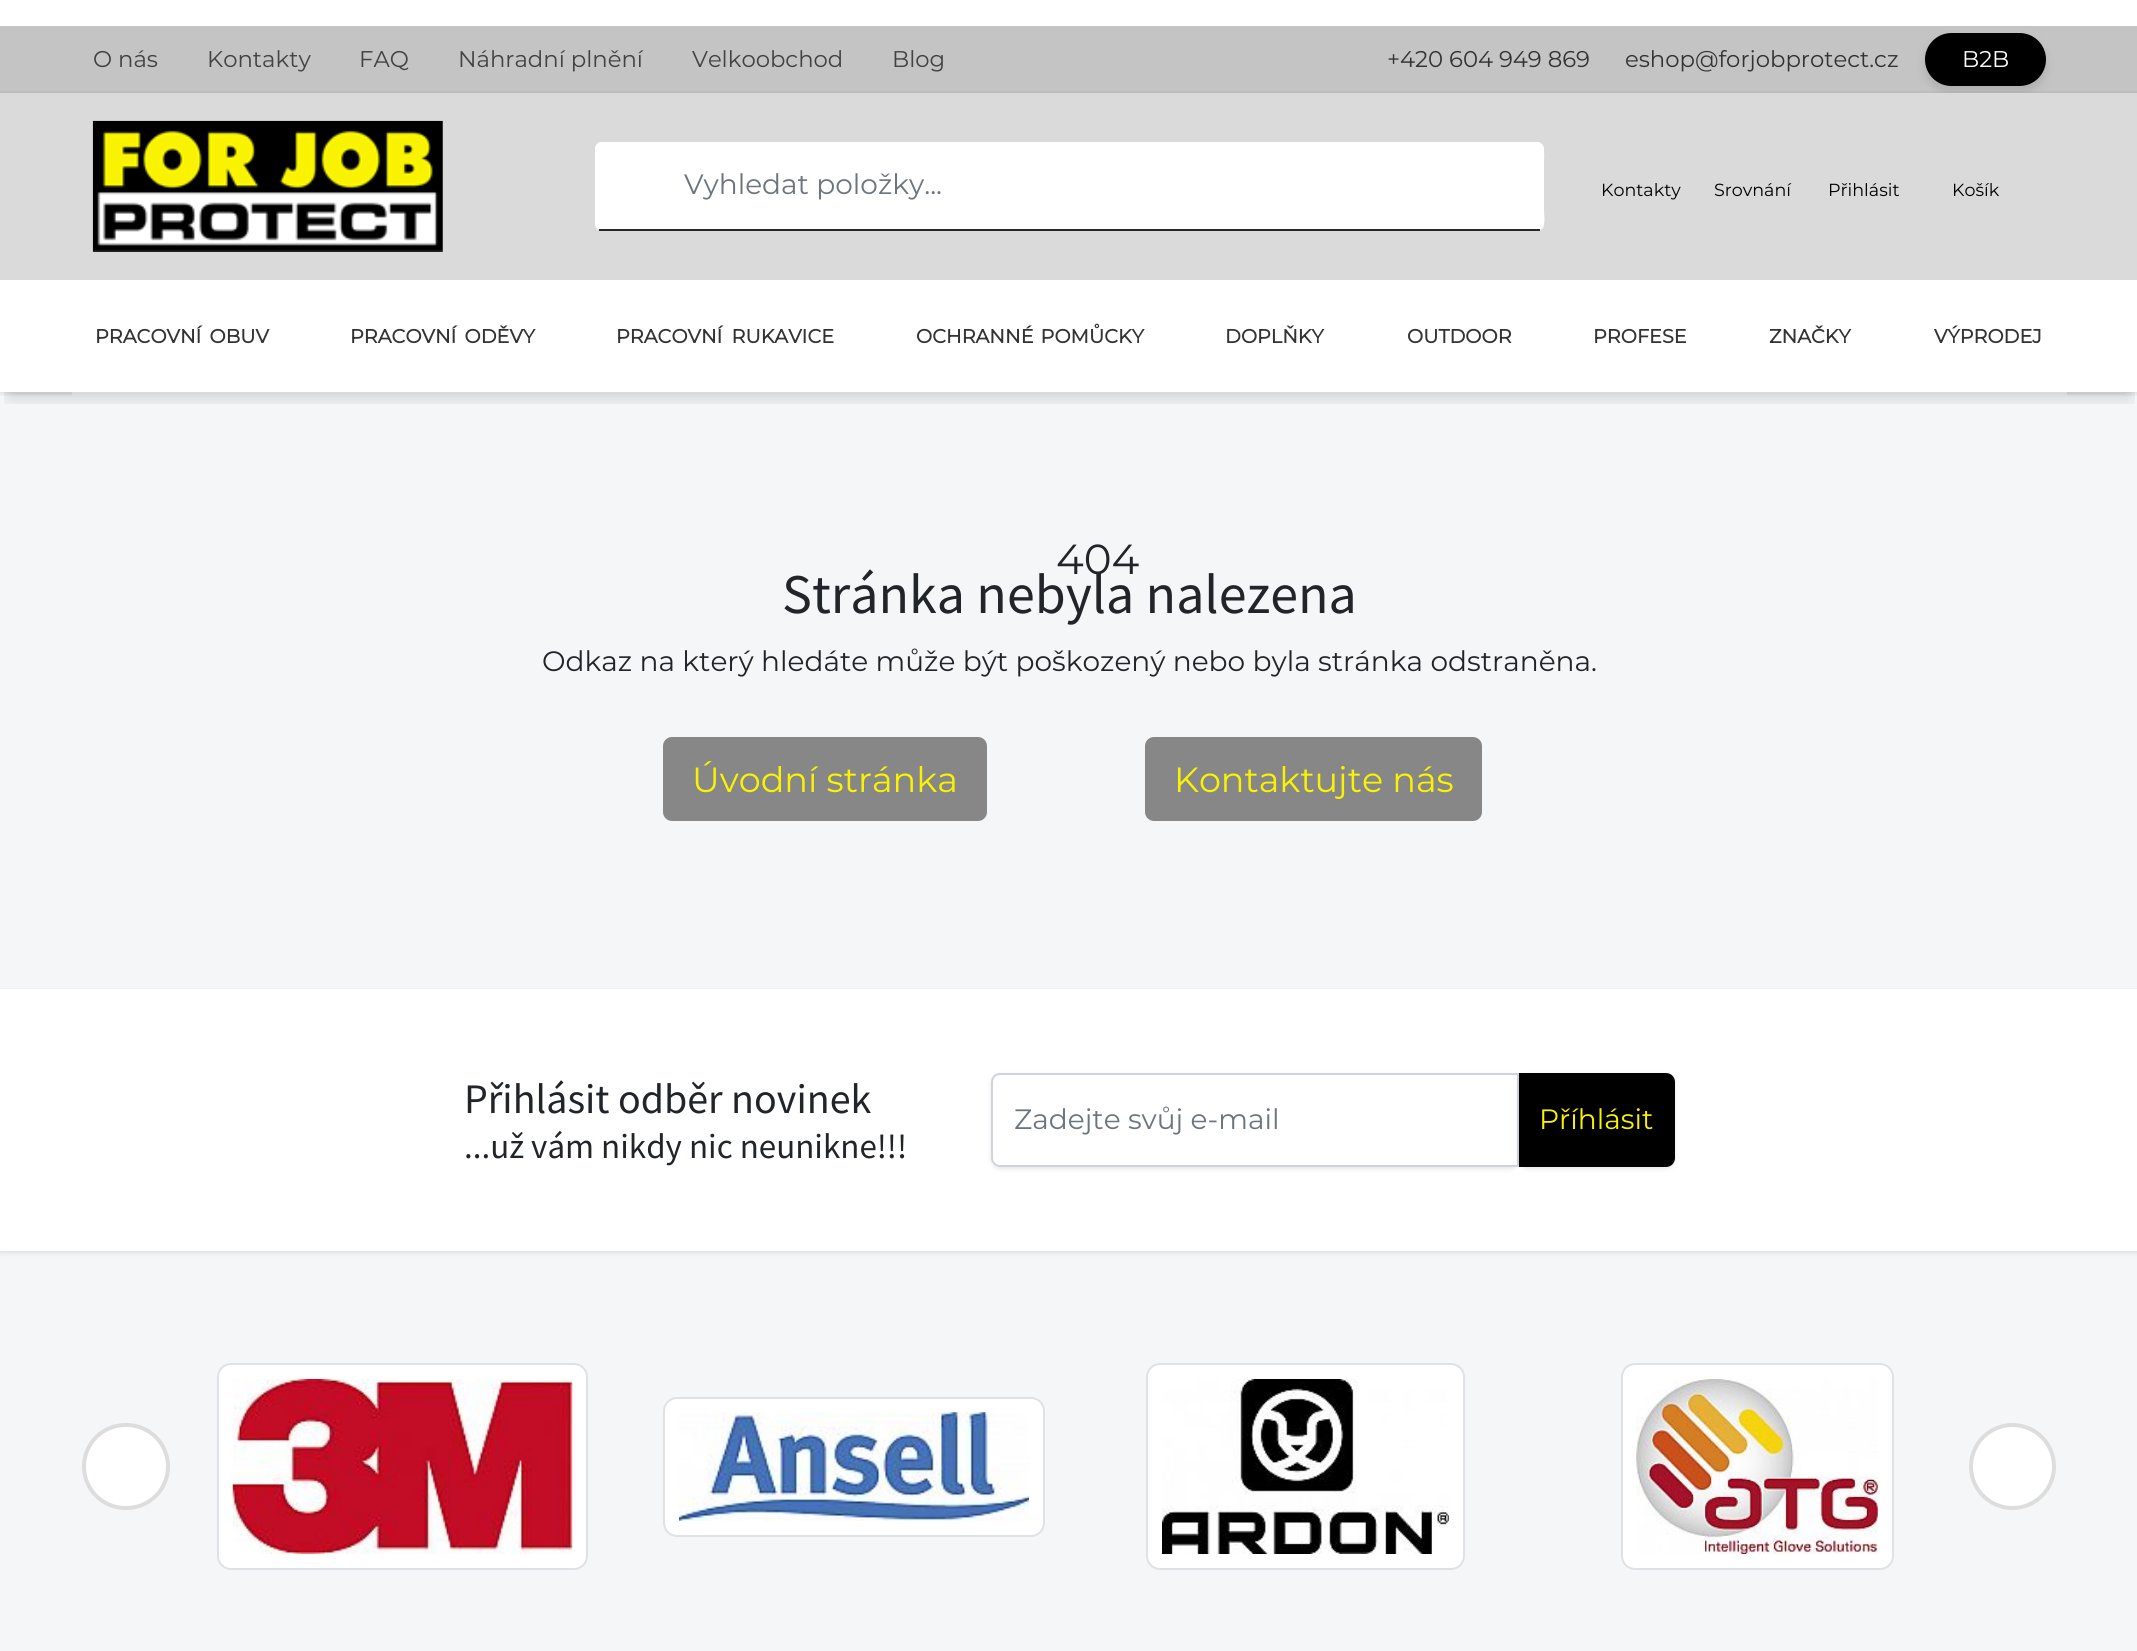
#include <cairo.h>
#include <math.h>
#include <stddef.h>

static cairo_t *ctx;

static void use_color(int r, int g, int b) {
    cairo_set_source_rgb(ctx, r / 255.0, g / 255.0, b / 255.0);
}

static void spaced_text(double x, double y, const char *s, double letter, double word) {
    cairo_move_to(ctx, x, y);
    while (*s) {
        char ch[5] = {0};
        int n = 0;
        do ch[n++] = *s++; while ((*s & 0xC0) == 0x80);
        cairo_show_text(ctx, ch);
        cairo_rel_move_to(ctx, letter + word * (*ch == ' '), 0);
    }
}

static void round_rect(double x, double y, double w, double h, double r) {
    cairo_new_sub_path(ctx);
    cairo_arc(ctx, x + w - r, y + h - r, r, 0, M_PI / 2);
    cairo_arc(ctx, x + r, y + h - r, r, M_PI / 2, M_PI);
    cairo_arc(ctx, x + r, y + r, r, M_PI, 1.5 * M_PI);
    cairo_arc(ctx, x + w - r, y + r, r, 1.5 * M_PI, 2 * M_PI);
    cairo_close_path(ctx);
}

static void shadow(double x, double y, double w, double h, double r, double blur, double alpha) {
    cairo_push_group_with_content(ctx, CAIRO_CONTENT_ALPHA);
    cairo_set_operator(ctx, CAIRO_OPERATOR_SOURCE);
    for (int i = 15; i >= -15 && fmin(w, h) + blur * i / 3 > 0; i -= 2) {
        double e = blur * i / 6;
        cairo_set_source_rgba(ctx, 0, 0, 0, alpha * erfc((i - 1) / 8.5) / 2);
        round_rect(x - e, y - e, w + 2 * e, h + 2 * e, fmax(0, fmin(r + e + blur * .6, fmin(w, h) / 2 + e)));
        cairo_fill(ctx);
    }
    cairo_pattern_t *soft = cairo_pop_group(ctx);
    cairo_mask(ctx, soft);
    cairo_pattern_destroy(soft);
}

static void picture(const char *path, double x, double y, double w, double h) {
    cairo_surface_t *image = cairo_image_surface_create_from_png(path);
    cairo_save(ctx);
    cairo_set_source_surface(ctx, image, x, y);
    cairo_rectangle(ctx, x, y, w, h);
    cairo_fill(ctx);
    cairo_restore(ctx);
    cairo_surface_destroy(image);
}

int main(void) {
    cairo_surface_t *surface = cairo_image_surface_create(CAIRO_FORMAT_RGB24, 2137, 1651);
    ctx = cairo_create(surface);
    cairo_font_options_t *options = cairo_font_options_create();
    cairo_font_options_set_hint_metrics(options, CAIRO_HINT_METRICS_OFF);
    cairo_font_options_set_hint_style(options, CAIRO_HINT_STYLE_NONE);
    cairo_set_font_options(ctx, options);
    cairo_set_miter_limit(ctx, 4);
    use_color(255, 255, 255);
    cairo_paint(ctx);
    use_color(196, 196, 196);
    cairo_rectangle(ctx, 0, 26, 2137, 65);
    cairo_fill(ctx);
    use_color(189, 189, 189);
    cairo_rectangle(ctx, 0, 91, 2137, 2);
    cairo_fill(ctx);
    cairo_select_font_face(ctx, "Montserrat", CAIRO_FONT_SLANT_NORMAL, CAIRO_FONT_WEIGHT_NORMAL);
    cairo_set_font_size(ctx, 22.75);
    use_color(66, 66, 66);
    cairo_move_to(ctx, 93, 67);
    cairo_show_text(ctx, "O nás");
    cairo_move_to(ctx, 207, 67);
    cairo_show_text(ctx, "Kontakty");
    cairo_move_to(ctx, 359, 67);
    cairo_show_text(ctx, "FAQ");
    cairo_move_to(ctx, 458, 67);
    cairo_show_text(ctx, "Náhradní plnění");
    cairo_move_to(ctx, 692, 67);
    cairo_show_text(ctx, "Velkoobchod");
    cairo_move_to(ctx, 892, 67);
    cairo_show_text(ctx, "Blog");
    use_color(51, 51, 51);
    cairo_move_to(ctx, 1387, 67);
    cairo_show_text(ctx, "+420 604 949 869");
    cairo_move_to(ctx, 1625, 67);
    cairo_show_text(ctx, "eshop@forjobprotect.cz");
    use_color(0, 0, 0);
    shadow(1925, 39, 121, 52, 26, 5, 0.12);
    use_color(0, 0, 0);
    round_rect(1926, 34, 119, 51, 25.5);
    cairo_fill_preserve(ctx);
    cairo_stroke(ctx);
    use_color(255, 255, 255);
    cairo_move_to(ctx, 1962, 67);
    cairo_show_text(ctx, "B2B");
    use_color(245, 246, 248);
    cairo_rectangle(ctx, 0, 392, 2137, 1259);
    cairo_fill(ctx);
    cairo_save(ctx);
    cairo_rectangle(ctx, 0, 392, 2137, 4);
    cairo_clip(ctx);
    use_color(0, 0, 0);
    shadow(0, 282, 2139, 112, 0, 2.5, 0.1);
    cairo_restore(ctx);
    use_color(218, 218, 218);
    cairo_rectangle(ctx, 0, 93, 2137, 187);
    cairo_fill(ctx);
    picture("img1.png", 92, 120, 351, 132);
    use_color(255, 255, 255);
    round_rect(595, 142, 949, 89, 7);
    cairo_fill(ctx);
    use_color(38, 38, 38);
    cairo_rectangle(ctx, 599, 229, 941, 2);
    cairo_fill(ctx);
    use_color(255, 255, 255);
    cairo_new_path(ctx);
    cairo_move_to(ctx, 658, 142);
    cairo_line_to(ctx, 1538, 142);
    cairo_curve_to(ctx, 1546, 144, 1544, 157, 1544, 161);
    cairo_line_to(ctx, 1544, 211);
    cairo_curve_to(ctx, 1544, 217, 1547, 229, 1537, 229);
    cairo_line_to(ctx, 658, 229);
    cairo_curve_to(ctx, 648, 229, 651, 215, 651, 210);
    cairo_line_to(ctx, 651, 161);
    cairo_curve_to(ctx, 651, 156, 648, 142, 658, 142);
    cairo_close_path(ctx);
    cairo_fill(ctx);
    cairo_new_path(ctx);
    cairo_move_to(ctx, 595, 149);
    cairo_line_to(ctx, 595, 224);
    cairo_curve_to(ctx, 595, 226, 597, 228, 600, 229);
    cairo_line_to(ctx, 651, 229);
    cairo_line_to(ctx, 651, 142);
    cairo_line_to(ctx, 600, 142);
    cairo_curve_to(ctx, 597, 143, 595, 146, 595, 149);
    cairo_close_path(ctx);
    cairo_fill(ctx);
    cairo_set_font_size(ctx, 28);
    use_color(108, 117, 125);
    cairo_move_to(ctx, 684, 194);
    cairo_show_text(ctx, "Vyhledat položky...");
    cairo_set_font_size(ctx, 17.5);
    use_color(0, 0, 0);
    cairo_move_to(ctx, 1601, 196);
    cairo_show_text(ctx, "Kontakty");
    cairo_move_to(ctx, 1714, 196);
    cairo_show_text(ctx, "Srovnání");
    cairo_move_to(ctx, 1828, 196);
    cairo_show_text(ctx, "Přihlásit");
    cairo_move_to(ctx, 1952, 196);
    cairo_show_text(ctx, "Košík");
    cairo_select_font_face(ctx, "Montserrat", CAIRO_FONT_SLANT_NORMAL, CAIRO_FONT_WEIGHT_BOLD);
    cairo_set_font_size(ctx, 19.25);
    use_color(51, 51, 51);
    spaced_text(95, 343, "PRACOVNÍ OBUV", 0, 3);
    spaced_text(350, 343, "PRACOVNÍ ODĚVY", 0, 3);
    spaced_text(616, 343, "PRACOVNÍ RUKAVICE", 0, 4);
    spaced_text(916, 343, "OCHRANNÉ POMŮCKY", 0, 2);
    cairo_move_to(ctx, 1225, 343);
    cairo_show_text(ctx, "DOPLŇKY");
    cairo_move_to(ctx, 1407, 343);
    cairo_show_text(ctx, "OUTDOOR");
    cairo_move_to(ctx, 1593, 343);
    cairo_show_text(ctx, "PROFESE");
    cairo_move_to(ctx, 1769, 343);
    cairo_show_text(ctx, "ZNAČKY");
    cairo_move_to(ctx, 1934, 343);
    cairo_show_text(ctx, "VÝPRODEJ");
    use_color(245, 246, 248);
    cairo_rectangle(ctx, 72, 392, 1995, 5);
    cairo_fill(ctx);
    cairo_save(ctx);
    cairo_rectangle(ctx, 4, 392, 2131, 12);
    cairo_clip(ctx);
    use_color(0, 0, 0);
    shadow(9, 361, 2121, 35, 0, 9, 0.1);
    shadow(9, 361, 2121, 35, 0, 9, 0.1);
    cairo_restore(ctx);
    cairo_select_font_face(ctx, "Montserrat", CAIRO_FONT_SLANT_NORMAL, CAIRO_FONT_WEIGHT_NORMAL);
    cairo_set_font_size(ctx, 42);
    use_color(33, 37, 41);
    cairo_move_to(ctx, 1056, 574);
    cairo_show_text(ctx, "404");
    cairo_select_font_face(ctx, "Source Sans Pro", CAIRO_FONT_SLANT_NORMAL, CAIRO_FONT_WEIGHT_NORMAL);
    cairo_set_font_size(ctx, 56);
    cairo_move_to(ctx, 782, 613);
    cairo_show_text(ctx, "Stránka nebyla nalezena");
    cairo_select_font_face(ctx, "Montserrat", CAIRO_FONT_SLANT_NORMAL, CAIRO_FONT_WEIGHT_NORMAL);
    cairo_set_font_size(ctx, 28);
    cairo_move_to(ctx, 542, 671);
    cairo_show_text(ctx, "Odkaz na který hledáte může být poškozený nebo byla stránka odstraněna.");
    use_color(135, 135, 135);
    round_rect(664, 738, 322, 82, 8);
    cairo_fill_preserve(ctx);
    cairo_stroke(ctx);
    cairo_set_font_size(ctx, 35);
    use_color(249, 243, 1);
    cairo_move_to(ctx, 692, 792);
    cairo_show_text(ctx, "Úvodní stránka");
    use_color(135, 135, 135);
    round_rect(1146, 738, 335, 82, 8);
    cairo_fill_preserve(ctx);
    cairo_stroke(ctx);
    use_color(249, 243, 1);
    cairo_move_to(ctx, 1174, 792);
    cairo_show_text(ctx, "Kontaktujte nás");
    use_color(0, 0, 0);
    shadow(0, 991, 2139, 262, 0, 2.5, 0.1);
    use_color(255, 255, 255);
    cairo_rectangle(ctx, 0, 989, 2137, 262);
    cairo_fill(ctx);
    cairo_select_font_face(ctx, "Source Sans Pro", CAIRO_FONT_SLANT_NORMAL, CAIRO_FONT_WEIGHT_NORMAL);
    cairo_set_font_size(ctx, 42);
    use_color(33, 37, 41);
    cairo_move_to(ctx, 464, 1113);
    cairo_show_text(ctx, "Přihlásit odběr novinek");
    cairo_set_font_size(ctx, 35);
    cairo_move_to(ctx, 464, 1158);
    cairo_show_text(ctx, "...už vám nikdy nic neunikne!!!");
    cairo_save(ctx);
    cairo_set_fill_rule(ctx, CAIRO_FILL_RULE_EVEN_ODD);
    cairo_new_path(ctx);
    cairo_move_to(ctx, 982, 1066);
    cairo_line_to(ctx, 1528, 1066);
    cairo_line_to(ctx, 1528, 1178);
    cairo_line_to(ctx, 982, 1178);
    cairo_close_path(ctx);
    cairo_move_to(ctx, 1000, 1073);
    cairo_line_to(ctx, 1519, 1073);
    cairo_line_to(ctx, 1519, 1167);
    cairo_line_to(ctx, 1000, 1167);
    cairo_curve_to(ctx, 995, 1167, 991, 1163, 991, 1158);
    cairo_line_to(ctx, 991, 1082);
    cairo_curve_to(ctx, 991, 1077, 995, 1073, 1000, 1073);
    cairo_close_path(ctx);
    cairo_clip(ctx);
    use_color(0, 0, 0);
    shadow(991, 1075, 528, 94, 9, 2.5, 0.1);
    cairo_restore(ctx);
    cairo_new_path(ctx);
    cairo_move_to(ctx, 1000, 1074);
    cairo_line_to(ctx, 1518, 1074);
    cairo_line_to(ctx, 1518, 1166);
    cairo_line_to(ctx, 1000, 1166);
    cairo_curve_to(ctx, 995.5, 1166, 992, 1162.5, 992, 1158);
    cairo_line_to(ctx, 992, 1082);
    cairo_curve_to(ctx, 992, 1077.5, 995.5, 1074, 1000, 1074);
    cairo_close_path(ctx);
    use_color(206, 212, 218);
    cairo_stroke(ctx);
    cairo_select_font_face(ctx, "Montserrat", CAIRO_FONT_SLANT_NORMAL, CAIRO_FONT_WEIGHT_NORMAL);
    cairo_set_font_size(ctx, 28);
    use_color(108, 117, 125);
    cairo_move_to(ctx, 1014, 1129);
    cairo_show_text(ctx, "Zadejte svůj e-mail");
    use_color(0, 0, 0);
    shadow(1519, 1075, 156, 94, 9, 2.5, 0.1);
    use_color(0, 0, 0);
    cairo_new_path(ctx);
    cairo_move_to(ctx, 1519, 1073);
    cairo_line_to(ctx, 1666, 1073);
    cairo_curve_to(ctx, 1671, 1073, 1675, 1077, 1675, 1082);
    cairo_line_to(ctx, 1675, 1158);
    cairo_curve_to(ctx, 1675, 1163, 1671, 1167, 1666, 1167);
    cairo_line_to(ctx, 1519, 1167);
    cairo_close_path(ctx);
    cairo_fill(ctx);
    use_color(249, 243, 1);
    cairo_move_to(ctx, 1539, 1129);
    cairo_show_text(ctx, "Příhlásit");
    use_color(255, 255, 255);
    round_rect(84, 1425, 84, 83, 41.5);
    cairo_fill_preserve(ctx);
    use_color(221, 221, 221);
    cairo_set_line_width(ctx, 4);
    cairo_stroke(ctx);
    use_color(255, 255, 255);
    round_rect(218, 1364, 369, 205, 13);
    cairo_fill_preserve(ctx);
    use_color(222, 226, 230);
    cairo_set_line_width(ctx, 2);
    cairo_stroke(ctx);
    picture("img2.png", 232, 1379, 341, 175);
    use_color(255, 255, 255);
    round_rect(664, 1398, 380, 138, 13);
    cairo_fill_preserve(ctx);
    use_color(222, 226, 230);
    cairo_stroke(ctx);
    picture("img3.png", 679, 1412, 350, 109);
    use_color(255, 255, 255);
    round_rect(1147, 1364, 317, 205, 13);
    cairo_fill_preserve(ctx);
    use_color(222, 226, 230);
    cairo_stroke(ctx);
    picture("img4.png", 1162, 1379, 287, 175);
    use_color(255, 255, 255);
    round_rect(1622, 1364, 271, 205, 13);
    cairo_fill_preserve(ctx);
    use_color(222, 226, 230);
    cairo_stroke(ctx);
    picture("img5.png", 1636, 1379, 242, 175);
    use_color(255, 255, 255);
    cairo_arc(ctx, 2012.5, 1466.5, 41.5, 0, 2 * M_PI);
    cairo_fill_preserve(ctx);
    use_color(221, 221, 221);
    cairo_set_line_width(ctx, 4);
    cairo_stroke(ctx);
    cairo_surface_write_to_png(surface, "result.png");
    cairo_font_options_destroy(options);
    cairo_destroy(ctx);
    cairo_surface_destroy(surface);
    return 0;
}
